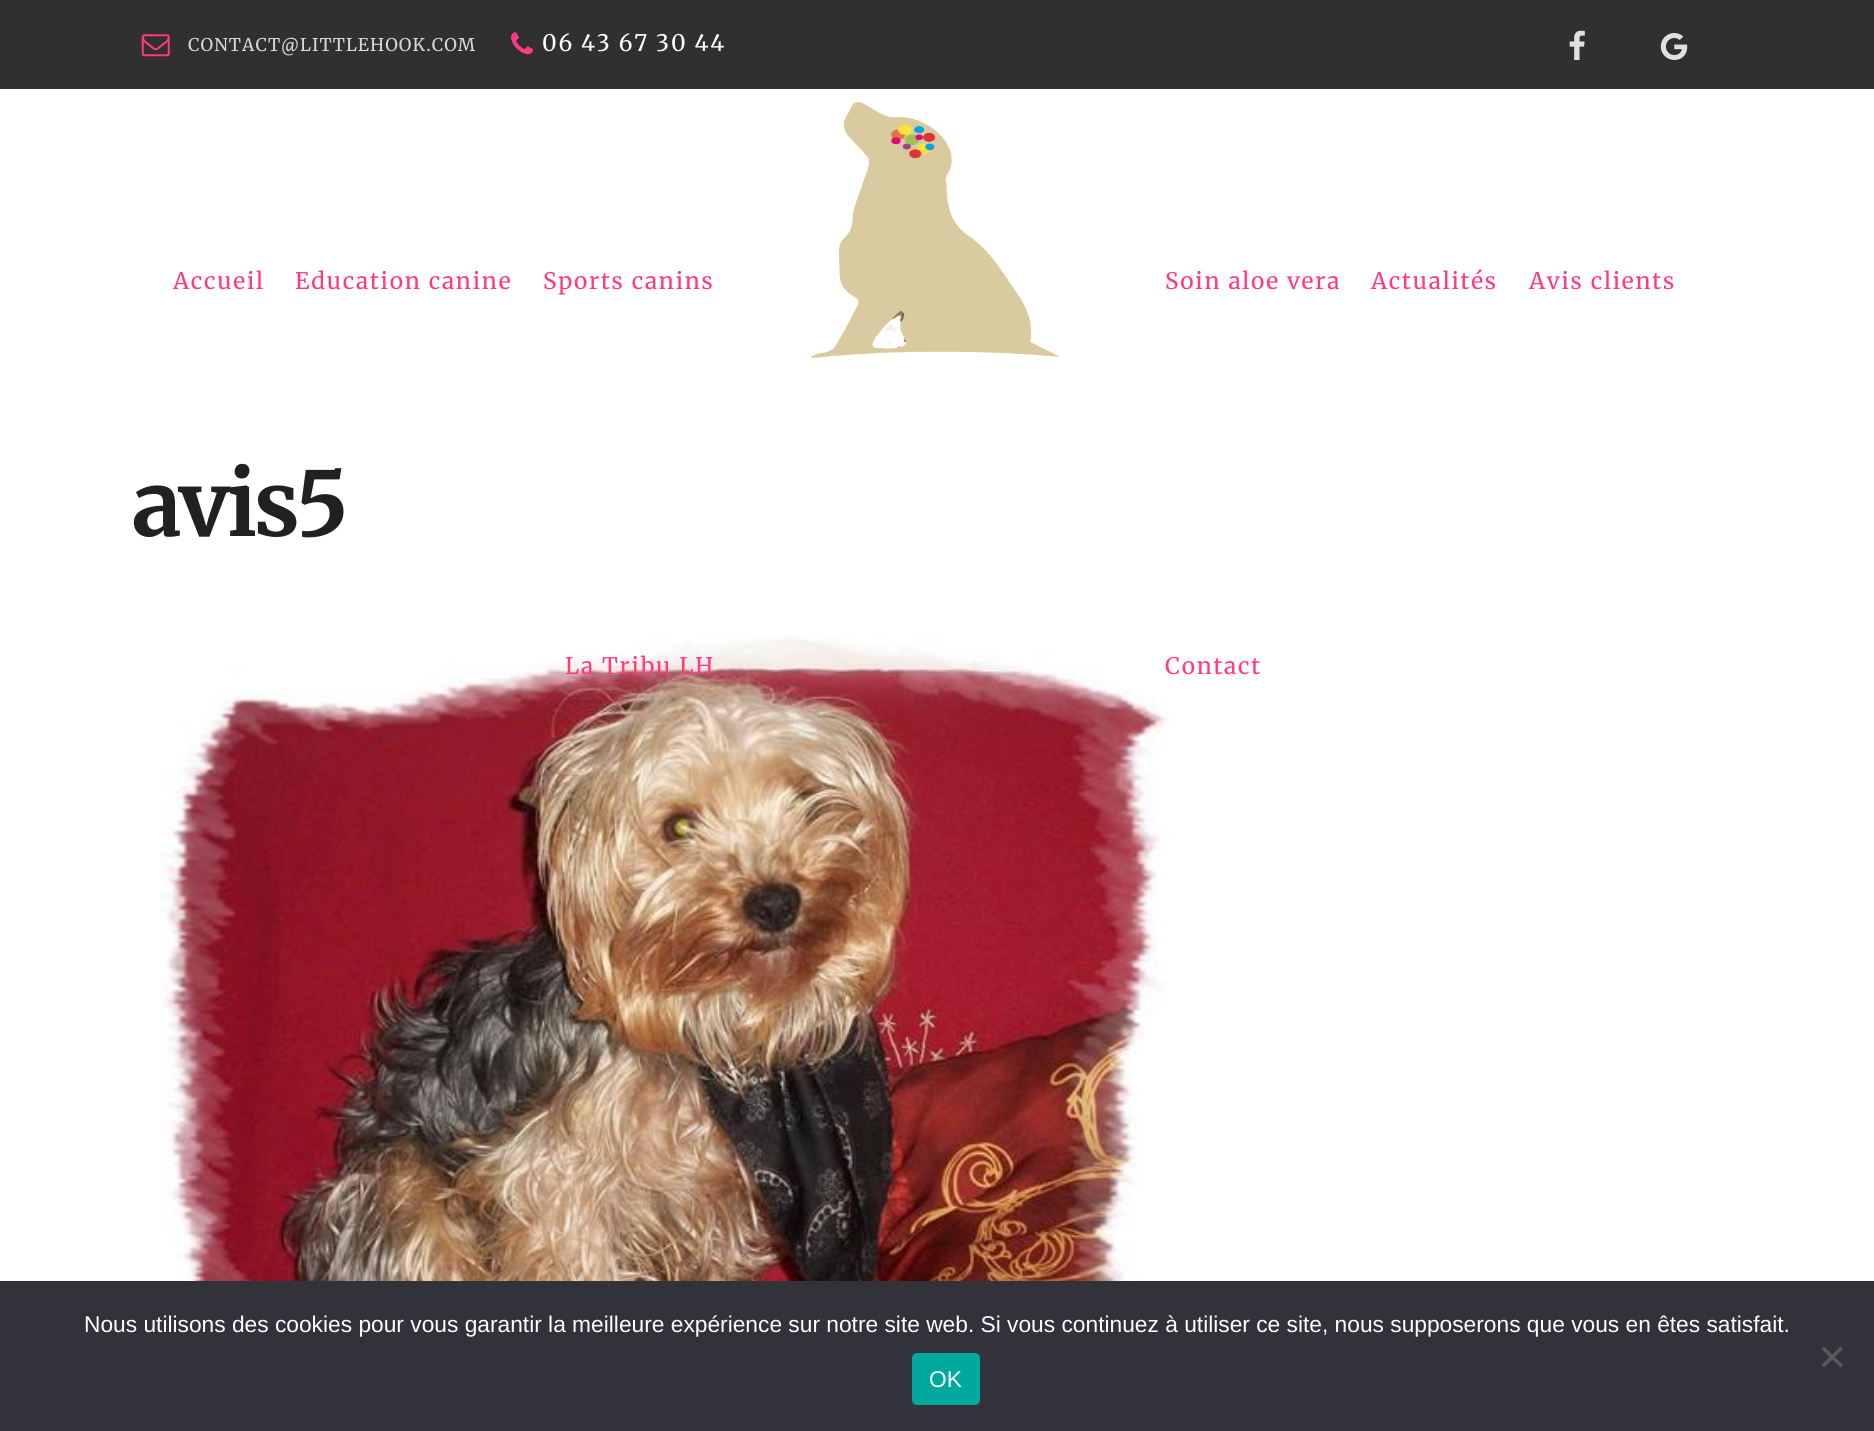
#include <cairo.h>
#include <math.h>
#include <stddef.h>

static cairo_t *ctx;

static void use_color(int r, int g, int b) {
    cairo_set_source_rgb(ctx, r / 255.0, g / 255.0, b / 255.0);
}

static void spaced_text(double x, double y, const char *s, double letter, double word) {
    cairo_move_to(ctx, x, y);
    while (*s) {
        char ch[5] = {0};
        int n = 0;
        do ch[n++] = *s++; while ((*s & 0xC0) == 0x80);
        cairo_show_text(ctx, ch);
        cairo_rel_move_to(ctx, letter + word * (*ch == ' '), 0);
    }
}

static void round_rect(double x, double y, double w, double h, double r) {
    cairo_new_sub_path(ctx);
    cairo_arc(ctx, x + w - r, y + h - r, r, 0, M_PI / 2);
    cairo_arc(ctx, x + r, y + h - r, r, M_PI / 2, M_PI);
    cairo_arc(ctx, x + r, y + r, r, M_PI, 1.5 * M_PI);
    cairo_arc(ctx, x + w - r, y + r, r, 1.5 * M_PI, 2 * M_PI);
    cairo_close_path(ctx);
}

static void picture(const char *path, double x, double y, double w, double h) {
    cairo_surface_t *image = cairo_image_surface_create_from_png(path);
    cairo_save(ctx);
    cairo_set_source_surface(ctx, image, x, y);
    cairo_rectangle(ctx, x, y, w, h);
    cairo_fill(ctx);
    cairo_restore(ctx);
    cairo_surface_destroy(image);
}

int main(void) {
    cairo_surface_t *surface = cairo_image_surface_create(CAIRO_FORMAT_RGB24, 1874, 1431);
    ctx = cairo_create(surface);
    cairo_font_options_t *options = cairo_font_options_create();
    cairo_font_options_set_hint_metrics(options, CAIRO_HINT_METRICS_OFF);
    cairo_font_options_set_hint_style(options, CAIRO_HINT_STYLE_NONE);
    cairo_set_font_options(ctx, options);
    cairo_set_miter_limit(ctx, 4);
    use_color(255, 255, 255);
    cairo_paint(ctx);
    use_color(48, 48, 48);
    cairo_rectangle(ctx, 0, 0, 1874, 89);
    cairo_fill(ctx);
    picture("img1.png", 141, 34, 29, 23);
    cairo_select_font_face(ctx, "Merriweather", CAIRO_FONT_SLANT_NORMAL, CAIRO_FONT_WEIGHT_NORMAL);
    cairo_set_font_size(ctx, 17.5);
    use_color(216, 216, 216);
    spaced_text(188, 51, "CONTACT@LITTLEHOOK.COM", 1.05, 0);
    picture("img2.png", 511, 32, 22, 23);
    cairo_set_font_size(ctx, 22.75);
    use_color(255, 255, 255);
    spaced_text(542, 51, "06 43 67 30 44", 1.75, 0);
    picture("img3.png", 1569, 30, 16, 30);
    picture("img4.png", 1660, 33, 28, 27);
    picture("img5.png", 810, 102, 250, 256);
    use_color(255, 57, 133);
    spaced_text(173, 289, "Accueil", 1.75, 0);
    spaced_text(295, 289, "Education canine", 1.75, 0);
    spaced_text(543, 289, "Sports canins", 1.75, 0);
    picture("img6.png", 160, 635, 1010, 646);
    spaced_text(565, 674, "La Tribu LH", 1.75, 0);
    spaced_text(1165, 289, "Soin aloe vera", 1.75, 0);
    spaced_text(1371, 289, "Actualités", 1.75, 0);
    spaced_text(1529, 289, "Avis clients", 1.75, 0);
    spaced_text(1165, 674, "Contact", 1.75, 0);
    cairo_select_font_face(ctx, "Merriweather", CAIRO_FONT_SLANT_NORMAL, CAIRO_FONT_WEIGHT_BOLD);
    cairo_set_font_size(ctx, 89);
    use_color(31, 33, 35);
    spaced_text(132, 536, "avis5", -3.5, 0);
    use_color(50, 50, 58);
    cairo_rectangle(ctx, 0, 1281, 1874, 150);
    cairo_fill(ctx);
    cairo_select_font_face(ctx, "Liberation Sans", CAIRO_FONT_SLANT_NORMAL, CAIRO_FONT_WEIGHT_NORMAL);
    cairo_set_font_size(ctx, 22.75);
    use_color(255, 255, 255);
    cairo_move_to(ctx, 84, 1332);
    cairo_show_text(ctx, "Nous utilisons des cookies pour vous garantir la meilleure expérience sur notre site web. Si vous continuez à utiliser ce site, nous supposerons que vous en êtes satisfait.");
    use_color(89, 89, 93);
    cairo_new_path(ctx);
    cairo_move_to(ctx, 1840.5, 1346.5);
    cairo_line_to(ctx, 1843, 1349);
    cairo_line_to(ctx, 1824, 1367.5);
    cairo_line_to(ctx, 1821.5, 1365);
    cairo_close_path(ctx);
    cairo_fill(ctx);
    cairo_new_path(ctx);
    cairo_move_to(ctx, 1821.5, 1349);
    cairo_line_to(ctx, 1824, 1346.5);
    cairo_line_to(ctx, 1843, 1365);
    cairo_line_to(ctx, 1840.5, 1367.5);
    cairo_close_path(ctx);
    cairo_fill(ctx);
    use_color(0, 169, 157);
    round_rect(912, 1353, 68, 52, 5);
    cairo_fill(ctx);
    use_color(255, 255, 255);
    cairo_move_to(ctx, 929, 1387);
    cairo_show_text(ctx, "OK");
    cairo_surface_write_to_png(surface, "result.png");
    cairo_font_options_destroy(options);
    cairo_destroy(ctx);
    cairo_surface_destroy(surface);
    return 0;
}
